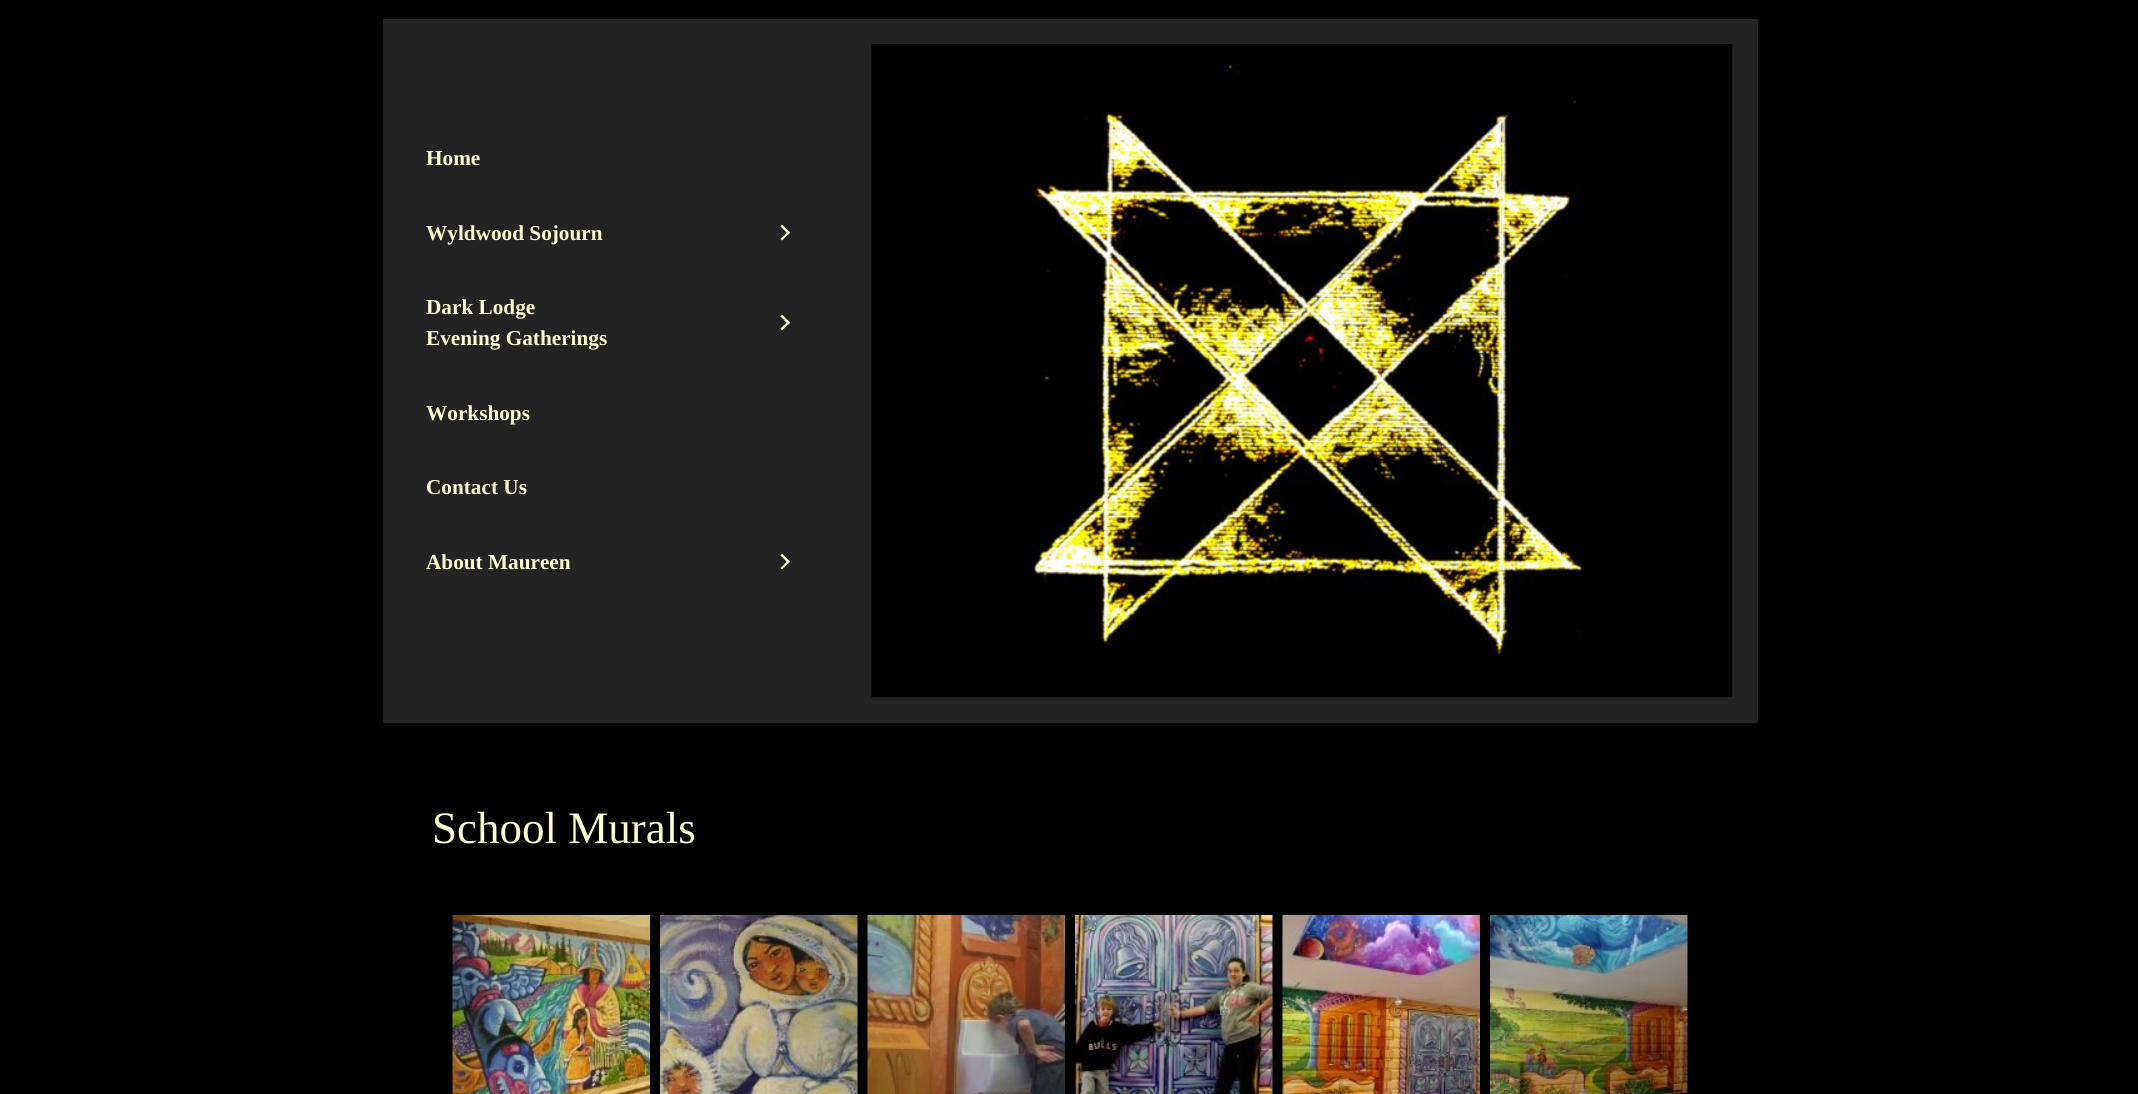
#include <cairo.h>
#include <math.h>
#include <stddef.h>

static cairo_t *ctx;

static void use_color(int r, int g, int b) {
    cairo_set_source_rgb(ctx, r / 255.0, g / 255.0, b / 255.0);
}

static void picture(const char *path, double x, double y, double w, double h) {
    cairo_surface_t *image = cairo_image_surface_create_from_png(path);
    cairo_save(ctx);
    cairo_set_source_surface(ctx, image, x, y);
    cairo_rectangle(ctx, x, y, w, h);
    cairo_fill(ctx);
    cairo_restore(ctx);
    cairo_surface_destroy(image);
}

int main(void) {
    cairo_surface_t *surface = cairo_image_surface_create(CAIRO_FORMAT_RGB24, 2138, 1094);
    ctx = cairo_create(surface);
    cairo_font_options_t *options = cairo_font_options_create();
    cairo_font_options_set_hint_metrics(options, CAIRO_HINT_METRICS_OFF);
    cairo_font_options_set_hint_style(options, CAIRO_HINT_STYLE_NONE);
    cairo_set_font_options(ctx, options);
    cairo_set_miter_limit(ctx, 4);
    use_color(0, 0, 0);
    cairo_paint(ctx);
    use_color(35, 35, 35);
    cairo_rectangle(ctx, 383, 19, 1375, 704);
    cairo_fill(ctx);
    cairo_select_font_face(ctx, "Liberation Serif", CAIRO_FONT_SLANT_NORMAL, CAIRO_FONT_WEIGHT_BOLD);
    cairo_set_font_size(ctx, 21.25);
    use_color(253, 254, 208);
    cairo_move_to(ctx, 426, 165);
    cairo_show_text(ctx, "Home");
    cairo_move_to(ctx, 426, 240);
    cairo_show_text(ctx, "Wyldwood Sojourn");
    cairo_new_path(ctx);
    cairo_move_to(ctx, 780.5, 226.5);
    cairo_line_to(ctx, 782, 224.5);
    cairo_line_to(ctx, 790, 232.5);
    cairo_line_to(ctx, 788.5, 234.5);
    cairo_close_path(ctx);
    cairo_fill(ctx);
    cairo_new_path(ctx);
    cairo_move_to(ctx, 780.5, 239);
    cairo_line_to(ctx, 788.5, 231);
    cairo_line_to(ctx, 790, 232.5);
    cairo_line_to(ctx, 782, 240.5);
    cairo_close_path(ctx);
    cairo_fill(ctx);
    cairo_move_to(ctx, 426, 314);
    cairo_show_text(ctx, "Dark Lodge");
    cairo_new_path(ctx);
    cairo_move_to(ctx, 780.5, 316.5);
    cairo_line_to(ctx, 782, 314.5);
    cairo_line_to(ctx, 790, 322.5);
    cairo_line_to(ctx, 788.5, 324.5);
    cairo_close_path(ctx);
    cairo_fill(ctx);
    cairo_new_path(ctx);
    cairo_move_to(ctx, 780.5, 328.5);
    cairo_line_to(ctx, 788.5, 321);
    cairo_line_to(ctx, 790, 322.5);
    cairo_line_to(ctx, 782, 330.5);
    cairo_close_path(ctx);
    cairo_fill(ctx);
    cairo_move_to(ctx, 426, 345);
    cairo_show_text(ctx, "Evening Gatherings");
    cairo_move_to(ctx, 426, 420);
    cairo_show_text(ctx, "Workshops");
    cairo_move_to(ctx, 426, 494);
    cairo_show_text(ctx, "Contact Us");
    cairo_move_to(ctx, 426, 569);
    cairo_show_text(ctx, "About Maureen");
    cairo_new_path(ctx);
    cairo_move_to(ctx, 780.5, 555.5);
    cairo_line_to(ctx, 782, 553.5);
    cairo_line_to(ctx, 790, 561.5);
    cairo_line_to(ctx, 788.5, 563.5);
    cairo_close_path(ctx);
    cairo_fill(ctx);
    cairo_new_path(ctx);
    cairo_move_to(ctx, 780.5, 568);
    cairo_line_to(ctx, 788.5, 560);
    cairo_line_to(ctx, 790, 561.5);
    cairo_line_to(ctx, 782, 569.5);
    cairo_close_path(ctx);
    cairo_fill(ctx);
    picture("img1.png", 871, 44, 862, 654);
    cairo_select_font_face(ctx, "Liberation Serif", CAIRO_FONT_SLANT_NORMAL, CAIRO_FONT_WEIGHT_NORMAL);
    cairo_set_font_size(ctx, 45);
    cairo_move_to(ctx, 432, 843);
    cairo_show_text(ctx, "School Murals");
    picture("img2.png", 452, 915, 198, 179);
    picture("img3.png", 660, 915, 198, 179);
    picture("img4.png", 867, 915, 198, 179);
    picture("img5.png", 1075, 915, 198, 179);
    picture("img6.png", 1282, 915, 198, 179);
    picture("img7.png", 1490, 915, 198, 179);
    cairo_surface_write_to_png(surface, "result.png");
    cairo_font_options_destroy(options);
    cairo_destroy(ctx);
    cairo_surface_destroy(surface);
    return 0;
}
